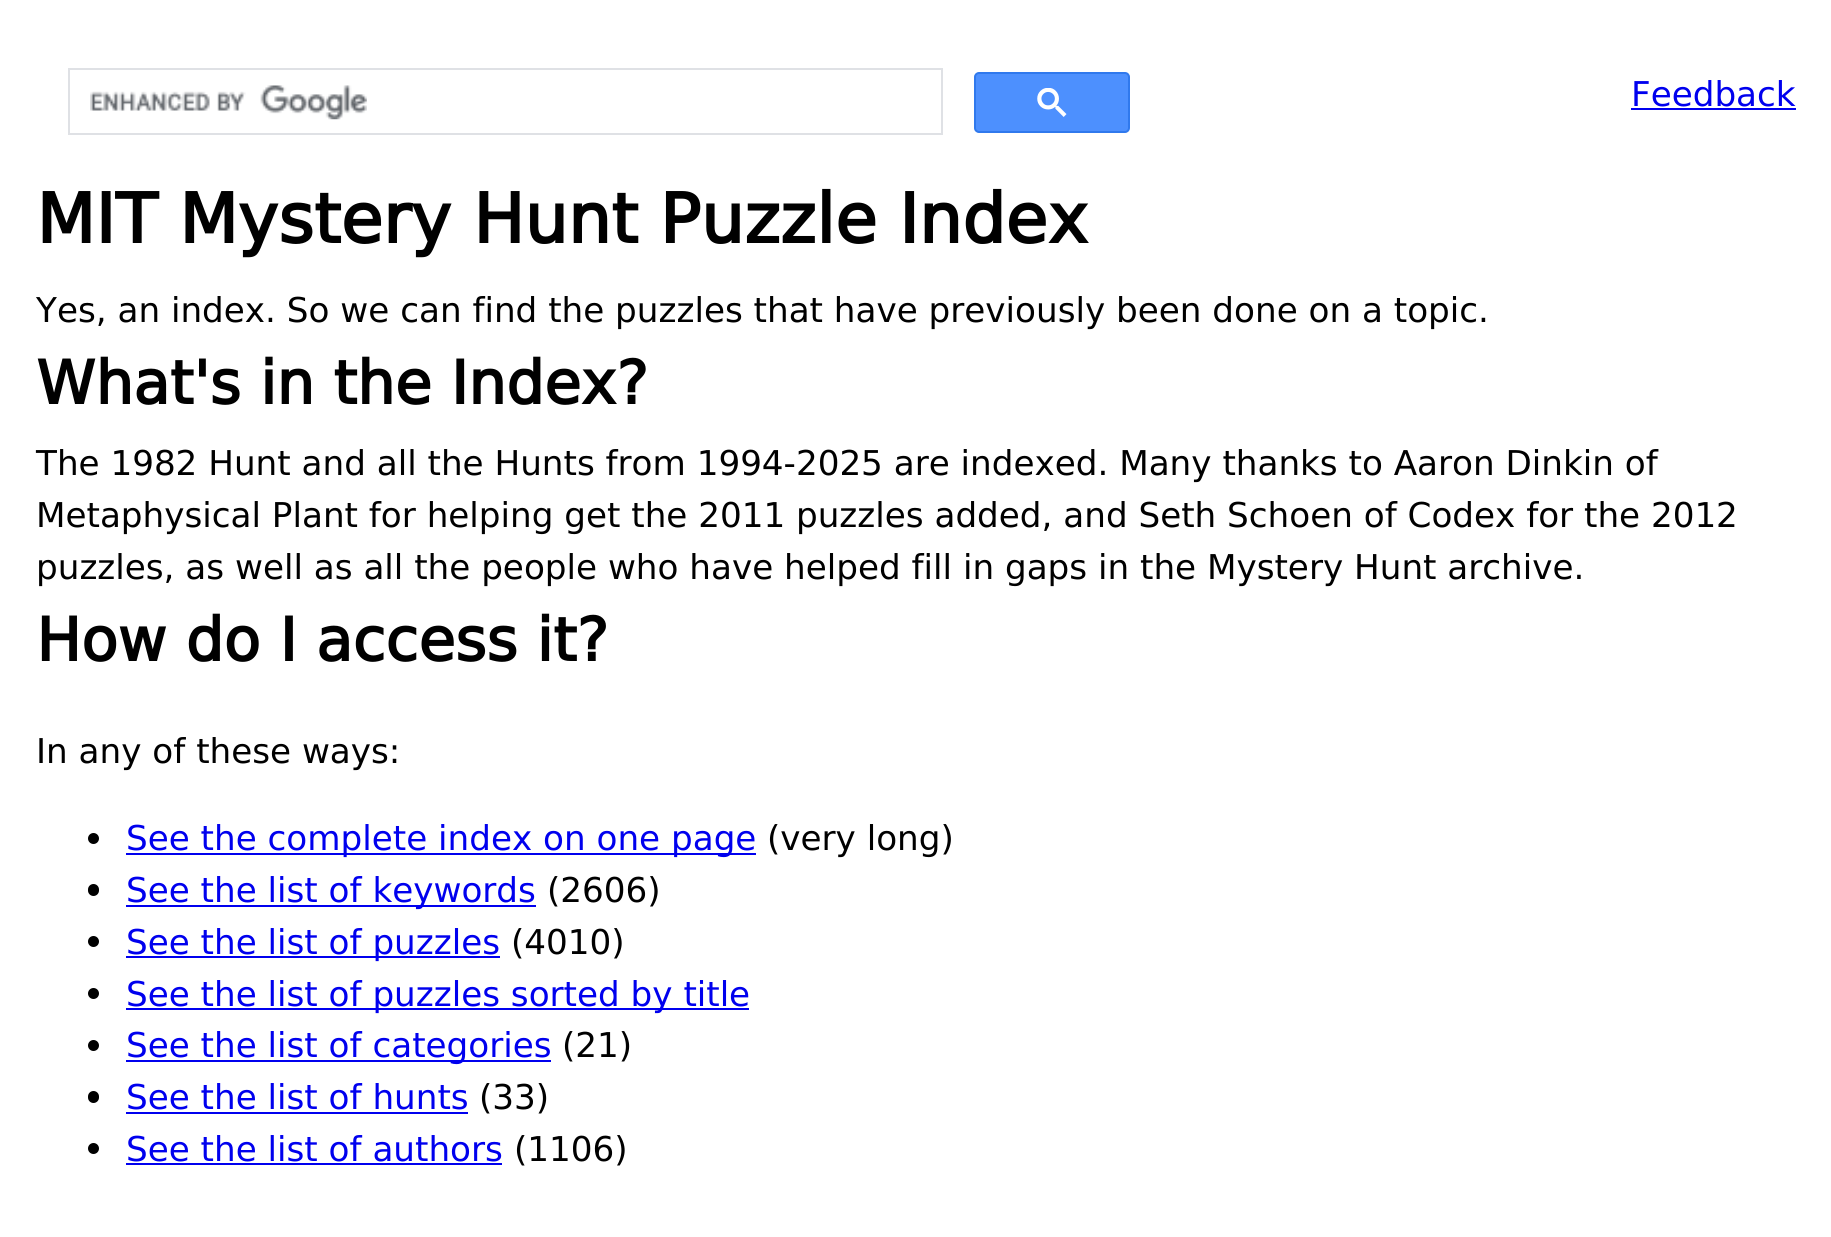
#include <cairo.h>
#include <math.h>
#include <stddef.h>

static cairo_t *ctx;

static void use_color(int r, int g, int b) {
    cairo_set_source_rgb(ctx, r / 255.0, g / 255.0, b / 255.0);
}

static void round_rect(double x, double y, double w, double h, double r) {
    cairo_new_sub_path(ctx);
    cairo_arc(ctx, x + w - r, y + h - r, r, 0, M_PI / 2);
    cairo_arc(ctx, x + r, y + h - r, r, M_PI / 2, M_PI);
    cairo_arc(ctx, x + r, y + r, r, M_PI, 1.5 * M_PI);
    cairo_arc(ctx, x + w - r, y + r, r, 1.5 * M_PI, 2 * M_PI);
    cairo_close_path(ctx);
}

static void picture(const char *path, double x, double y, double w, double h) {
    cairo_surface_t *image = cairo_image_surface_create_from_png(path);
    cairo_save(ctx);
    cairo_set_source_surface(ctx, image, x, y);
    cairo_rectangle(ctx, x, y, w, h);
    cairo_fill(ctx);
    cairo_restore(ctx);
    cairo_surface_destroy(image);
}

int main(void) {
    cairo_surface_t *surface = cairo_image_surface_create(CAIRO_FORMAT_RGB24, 1831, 1237);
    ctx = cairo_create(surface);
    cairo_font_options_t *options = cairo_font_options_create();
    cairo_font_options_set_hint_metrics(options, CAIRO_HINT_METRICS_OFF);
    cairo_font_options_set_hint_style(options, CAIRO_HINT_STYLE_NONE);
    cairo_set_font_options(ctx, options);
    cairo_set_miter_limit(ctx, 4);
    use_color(255, 255, 255);
    cairo_paint(ctx);
    cairo_rectangle(ctx, 69, 69, 873, 65);
    use_color(223, 225, 229);
    cairo_stroke(ctx);
    picture("img1.png", 90, 85, 277, 35);
    use_color(77, 144, 254);
    round_rect(975, 73, 154, 59, 4);
    cairo_fill_preserve(ctx);
    use_color(48, 121, 237);
    cairo_stroke(ctx);
    picture("img2.png", 1037, 88, 30, 29);
    cairo_select_font_face(ctx, "DejaVu Sans", CAIRO_FONT_SLANT_NORMAL, CAIRO_FONT_WEIGHT_NORMAL);
    cairo_set_font_size(ctx, 36);
    use_color(0, 0, 238);
    cairo_move_to(ctx, 1631, 106);
    cairo_show_text(ctx, "Feedback");
    cairo_rectangle(ctx, 1631, 108, 165, 2);
    cairo_fill(ctx);
    cairo_select_font_face(ctx, "DejaVu Sans", CAIRO_FONT_SLANT_NORMAL, CAIRO_FONT_WEIGHT_BOLD);
    cairo_set_font_size(ctx, 72);
    use_color(0, 0, 0);
    cairo_move_to(ctx, 36, 243);
    cairo_show_text(ctx, "MIT Mystery Hunt Puzzle Index");
    cairo_select_font_face(ctx, "DejaVu Sans", CAIRO_FONT_SLANT_NORMAL, CAIRO_FONT_WEIGHT_NORMAL);
    cairo_set_font_size(ctx, 36);
    cairo_move_to(ctx, 36, 322);
    cairo_show_text(ctx, "Yes, an index. So we can find the puzzles that have previously been done on a topic.");
    cairo_select_font_face(ctx, "DejaVu Sans", CAIRO_FONT_SLANT_NORMAL, CAIRO_FONT_WEIGHT_BOLD);
    cairo_set_font_size(ctx, 63);
    cairo_move_to(ctx, 36, 404);
    cairo_show_text(ctx, "What's in the Index?");
    cairo_select_font_face(ctx, "DejaVu Sans", CAIRO_FONT_SLANT_NORMAL, CAIRO_FONT_WEIGHT_NORMAL);
    cairo_set_font_size(ctx, 36);
    cairo_move_to(ctx, 36, 475);
    cairo_show_text(ctx, "The 1982 Hunt and all the Hunts from 1994-2025 are indexed. Many thanks to Aaron Dinkin of");
    cairo_move_to(ctx, 36, 527);
    cairo_show_text(ctx, "Metaphysical Plant for helping get the 2011 puzzles added, and Seth Schoen of Codex for the 2012");
    cairo_move_to(ctx, 36, 579);
    cairo_show_text(ctx, "puzzles, as well as all the people who have helped fill in gaps in the Mystery Hunt archive.");
    cairo_select_font_face(ctx, "DejaVu Sans", CAIRO_FONT_SLANT_NORMAL, CAIRO_FONT_WEIGHT_BOLD);
    cairo_set_font_size(ctx, 63);
    cairo_move_to(ctx, 36, 661);
    cairo_show_text(ctx, "How do I access it?");
    cairo_select_font_face(ctx, "DejaVu Sans", CAIRO_FONT_SLANT_NORMAL, CAIRO_FONT_WEIGHT_NORMAL);
    cairo_set_font_size(ctx, 36);
    cairo_move_to(ctx, 36, 763);
    cairo_show_text(ctx, "In any of these ways:");
    cairo_new_path(ctx);
    cairo_arc(ctx, 93.5, 838.5, 5.5, 0, 2 * M_PI);
    cairo_fill(ctx);
    use_color(0, 0, 238);
    cairo_rectangle(ctx, 126, 853, 630, 2);
    cairo_fill(ctx);
    cairo_move_to(ctx, 126, 850);
    cairo_show_text(ctx, "See the complete index on one page");
    use_color(0, 0, 0);
    cairo_move_to(ctx, 767, 850);
    cairo_show_text(ctx, "(very long)");
    round_rect(88, 884, 11, 12, 5.5);
    cairo_fill(ctx);
    use_color(0, 0, 238);
    cairo_rectangle(ctx, 126, 905, 410, 2);
    cairo_fill(ctx);
    cairo_move_to(ctx, 126, 902);
    cairo_show_text(ctx, "See the list of keywords");
    use_color(0, 0, 0);
    cairo_move_to(ctx, 547, 902);
    cairo_show_text(ctx, "(2606)");
    cairo_new_path(ctx);
    cairo_arc(ctx, 93.5, 941.5, 5.5, 0, 2 * M_PI);
    cairo_fill(ctx);
    use_color(0, 0, 238);
    cairo_rectangle(ctx, 126, 956, 374, 2);
    cairo_fill(ctx);
    cairo_move_to(ctx, 126, 954);
    cairo_show_text(ctx, "See the list of puzzles");
    use_color(0, 0, 0);
    cairo_move_to(ctx, 511, 954);
    cairo_show_text(ctx, "(4010)");
    cairo_new_path(ctx);
    cairo_arc(ctx, 93.5, 993.5, 5.5, 0, 2 * M_PI);
    cairo_fill(ctx);
    use_color(0, 0, 238);
    cairo_rectangle(ctx, 126, 1008, 623, 2);
    cairo_fill(ctx);
    cairo_move_to(ctx, 126, 1006);
    cairo_show_text(ctx, "See the list of puzzles sorted by title");
    use_color(0, 0, 0);
    cairo_new_path(ctx);
    cairo_arc(ctx, 93.5, 1045.5, 5.5, 0, 2 * M_PI);
    cairo_fill(ctx);
    use_color(0, 0, 238);
    cairo_rectangle(ctx, 126, 1060, 425, 2);
    cairo_fill(ctx);
    cairo_move_to(ctx, 126, 1057);
    cairo_show_text(ctx, "See the list of categories");
    use_color(0, 0, 0);
    cairo_move_to(ctx, 562, 1057);
    cairo_show_text(ctx, "(21)");
    round_rect(88, 1091, 11, 12, 5.5);
    cairo_fill(ctx);
    use_color(0, 0, 238);
    cairo_move_to(ctx, 126, 1109);
    cairo_show_text(ctx, "See the list of hunts");
    cairo_rectangle(ctx, 126, 1112, 342, 2);
    cairo_fill(ctx);
    use_color(0, 0, 0);
    cairo_move_to(ctx, 479, 1109);
    cairo_show_text(ctx, "(33)");
    cairo_new_path(ctx);
    cairo_arc(ctx, 93.5, 1148.5, 5.5, 0, 2 * M_PI);
    cairo_fill(ctx);
    use_color(0, 0, 238);
    cairo_move_to(ctx, 126, 1161);
    cairo_show_text(ctx, "See the list of authors");
    cairo_rectangle(ctx, 126, 1163, 376, 2);
    cairo_fill(ctx);
    use_color(0, 0, 0);
    cairo_move_to(ctx, 514, 1161);
    cairo_show_text(ctx, "(1106)");
    cairo_surface_write_to_png(surface, "result.png");
    cairo_font_options_destroy(options);
    cairo_destroy(ctx);
    cairo_surface_destroy(surface);
    return 0;
}
